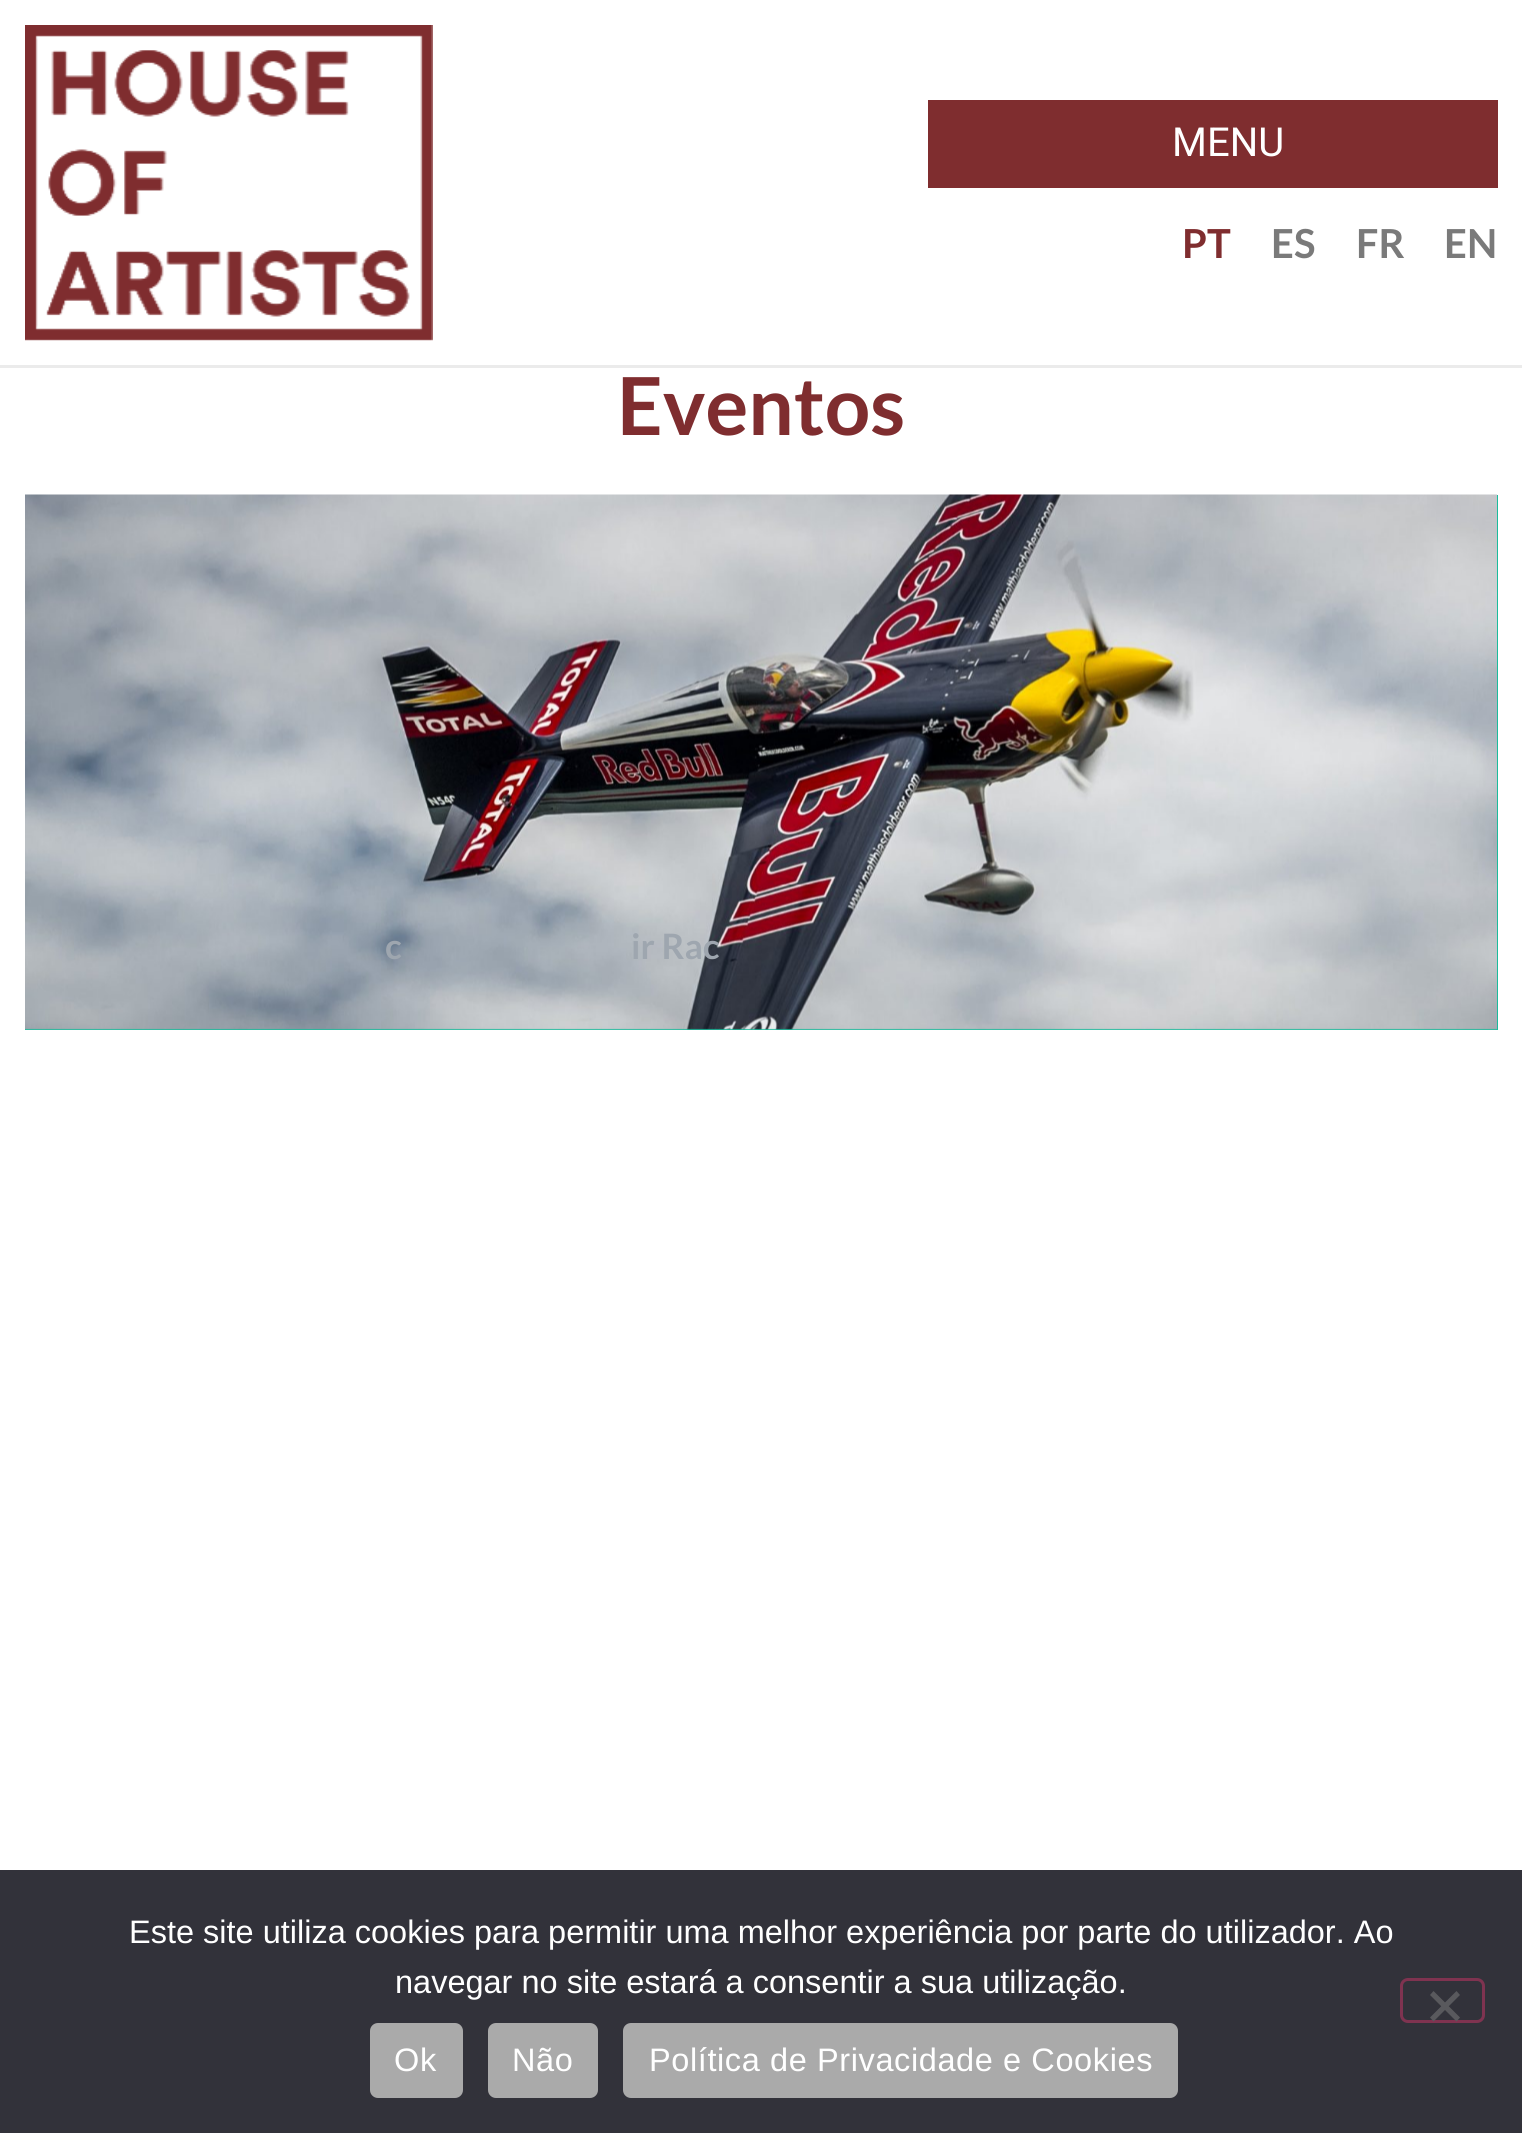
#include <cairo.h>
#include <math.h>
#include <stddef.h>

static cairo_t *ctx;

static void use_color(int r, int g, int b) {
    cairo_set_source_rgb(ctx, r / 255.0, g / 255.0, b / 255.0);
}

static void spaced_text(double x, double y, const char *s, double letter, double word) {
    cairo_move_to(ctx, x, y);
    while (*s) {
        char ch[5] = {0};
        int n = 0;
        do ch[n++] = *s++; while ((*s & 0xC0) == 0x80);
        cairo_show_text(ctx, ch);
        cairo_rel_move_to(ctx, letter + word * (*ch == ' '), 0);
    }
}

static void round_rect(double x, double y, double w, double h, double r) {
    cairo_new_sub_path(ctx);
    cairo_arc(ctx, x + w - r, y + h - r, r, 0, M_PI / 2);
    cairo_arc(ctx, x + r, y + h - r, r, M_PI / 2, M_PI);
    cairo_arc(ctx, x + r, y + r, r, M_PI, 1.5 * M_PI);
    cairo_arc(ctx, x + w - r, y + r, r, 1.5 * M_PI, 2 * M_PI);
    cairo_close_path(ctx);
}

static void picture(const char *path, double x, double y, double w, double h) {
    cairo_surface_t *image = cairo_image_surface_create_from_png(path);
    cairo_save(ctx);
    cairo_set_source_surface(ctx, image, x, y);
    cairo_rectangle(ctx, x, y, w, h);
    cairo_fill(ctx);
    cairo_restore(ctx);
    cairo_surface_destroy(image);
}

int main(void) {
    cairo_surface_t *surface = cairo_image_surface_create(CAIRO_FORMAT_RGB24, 1522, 2133);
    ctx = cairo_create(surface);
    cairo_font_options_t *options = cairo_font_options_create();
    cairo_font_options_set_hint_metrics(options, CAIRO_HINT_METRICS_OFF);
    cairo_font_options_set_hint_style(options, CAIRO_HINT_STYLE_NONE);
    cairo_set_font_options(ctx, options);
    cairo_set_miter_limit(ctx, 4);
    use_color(255, 255, 255);
    cairo_paint(ctx);
    use_color(235, 235, 235);
    cairo_rectangle(ctx, 0, 365, 1522, 3);
    cairo_fill(ctx);
    picture("img1.png", 25, 25, 408, 316);
    use_color(127, 45, 47);
    cairo_rectangle(ctx, 928, 100, 570, 88);
    cairo_fill(ctx);
    cairo_select_font_face(ctx, "Roboto", CAIRO_FONT_SLANT_NORMAL, CAIRO_FONT_WEIGHT_NORMAL);
    cairo_set_font_size(ctx, 40);
    use_color(255, 255, 255);
    cairo_move_to(ctx, 1172, 156);
    cairo_show_text(ctx, "MENU");
    cairo_select_font_face(ctx, "Lato", CAIRO_FONT_SLANT_NORMAL, CAIRO_FONT_WEIGHT_BOLD);
    use_color(127, 45, 47);
    cairo_move_to(ctx, 1182, 258);
    cairo_show_text(ctx, "PT");
    use_color(122, 122, 122);
    cairo_move_to(ctx, 1271, 258);
    cairo_show_text(ctx, "ES");
    cairo_move_to(ctx, 1356, 258);
    cairo_show_text(ctx, "FR");
    cairo_move_to(ctx, 1444, 258);
    cairo_show_text(ctx, "EN");
    cairo_set_font_size(ctx, 80);
    use_color(127, 45, 47);
    cairo_move_to(ctx, 617, 435);
    cairo_show_text(ctx, "Eventos");
    use_color(26, 188, 156);
    cairo_rectangle(ctx, 25, 495, 1473, 535);
    cairo_fill(ctx);
    picture("img2.png", 25, 494, 1472, 536);
    cairo_set_font_size(ctx, 35);
    use_color(158, 166, 175);
    cairo_move_to(ctx, 385, 959);
    cairo_show_text(ctx, "c");
    cairo_move_to(ctx, 631, 959);
    cairo_show_text(ctx, "ir Rac");
    use_color(50, 50, 58);
    cairo_rectangle(ctx, 0, 1870, 1522, 263);
    cairo_fill(ctx);
    cairo_select_font_face(ctx, "Liberation Sans", CAIRO_FONT_SLANT_NORMAL, CAIRO_FONT_WEIGHT_NORMAL);
    cairo_set_font_size(ctx, 32.5);
    use_color(255, 255, 255);
    cairo_move_to(ctx, 129, 1943);
    cairo_show_text(ctx, "Este site utiliza cookies para permitir uma melhor experiência por parte do utilizador. Ao");
    cairo_move_to(ctx, 395, 1993);
    cairo_show_text(ctx, "navegar no site estará a consentir a sua utilização.");
    round_rect(1401.5, 1979.5, 82, 42, 6.5);
    use_color(127, 51, 80);
    cairo_set_line_width(ctx, 3);
    cairo_stroke(ctx);
    use_color(89, 89, 93);
    cairo_new_path(ctx);
    cairo_move_to(ctx, 1456.5, 1991);
    cairo_line_to(ctx, 1460, 1995);
    cairo_line_to(ctx, 1433.5, 2021.5);
    cairo_line_to(ctx, 1430, 2017.5);
    cairo_close_path(ctx);
    cairo_fill(ctx);
    cairo_new_path(ctx);
    cairo_move_to(ctx, 1430, 1995);
    cairo_line_to(ctx, 1433.5, 1991);
    cairo_line_to(ctx, 1460, 2017.5);
    cairo_line_to(ctx, 1456.5, 2021.5);
    cairo_close_path(ctx);
    cairo_fill(ctx);
    use_color(170, 170, 170);
    round_rect(370, 2023, 93, 75, 8);
    cairo_fill(ctx);
    use_color(255, 255, 255);
    spaced_text(394, 2071, "Ok", 0.6, 0);
    use_color(170, 170, 170);
    round_rect(488, 2023, 110, 75, 8);
    cairo_fill(ctx);
    use_color(255, 255, 255);
    spaced_text(512, 2071, "Não", 0.6, 0);
    use_color(170, 170, 170);
    round_rect(623, 2023, 555, 75, 8);
    cairo_fill(ctx);
    use_color(255, 255, 255);
    spaced_text(649, 2071, "Política de Privacidade e Cookies", 0.6, 0);
    cairo_surface_write_to_png(surface, "result.png");
    cairo_font_options_destroy(options);
    cairo_destroy(ctx);
    cairo_surface_destroy(surface);
    return 0;
}
